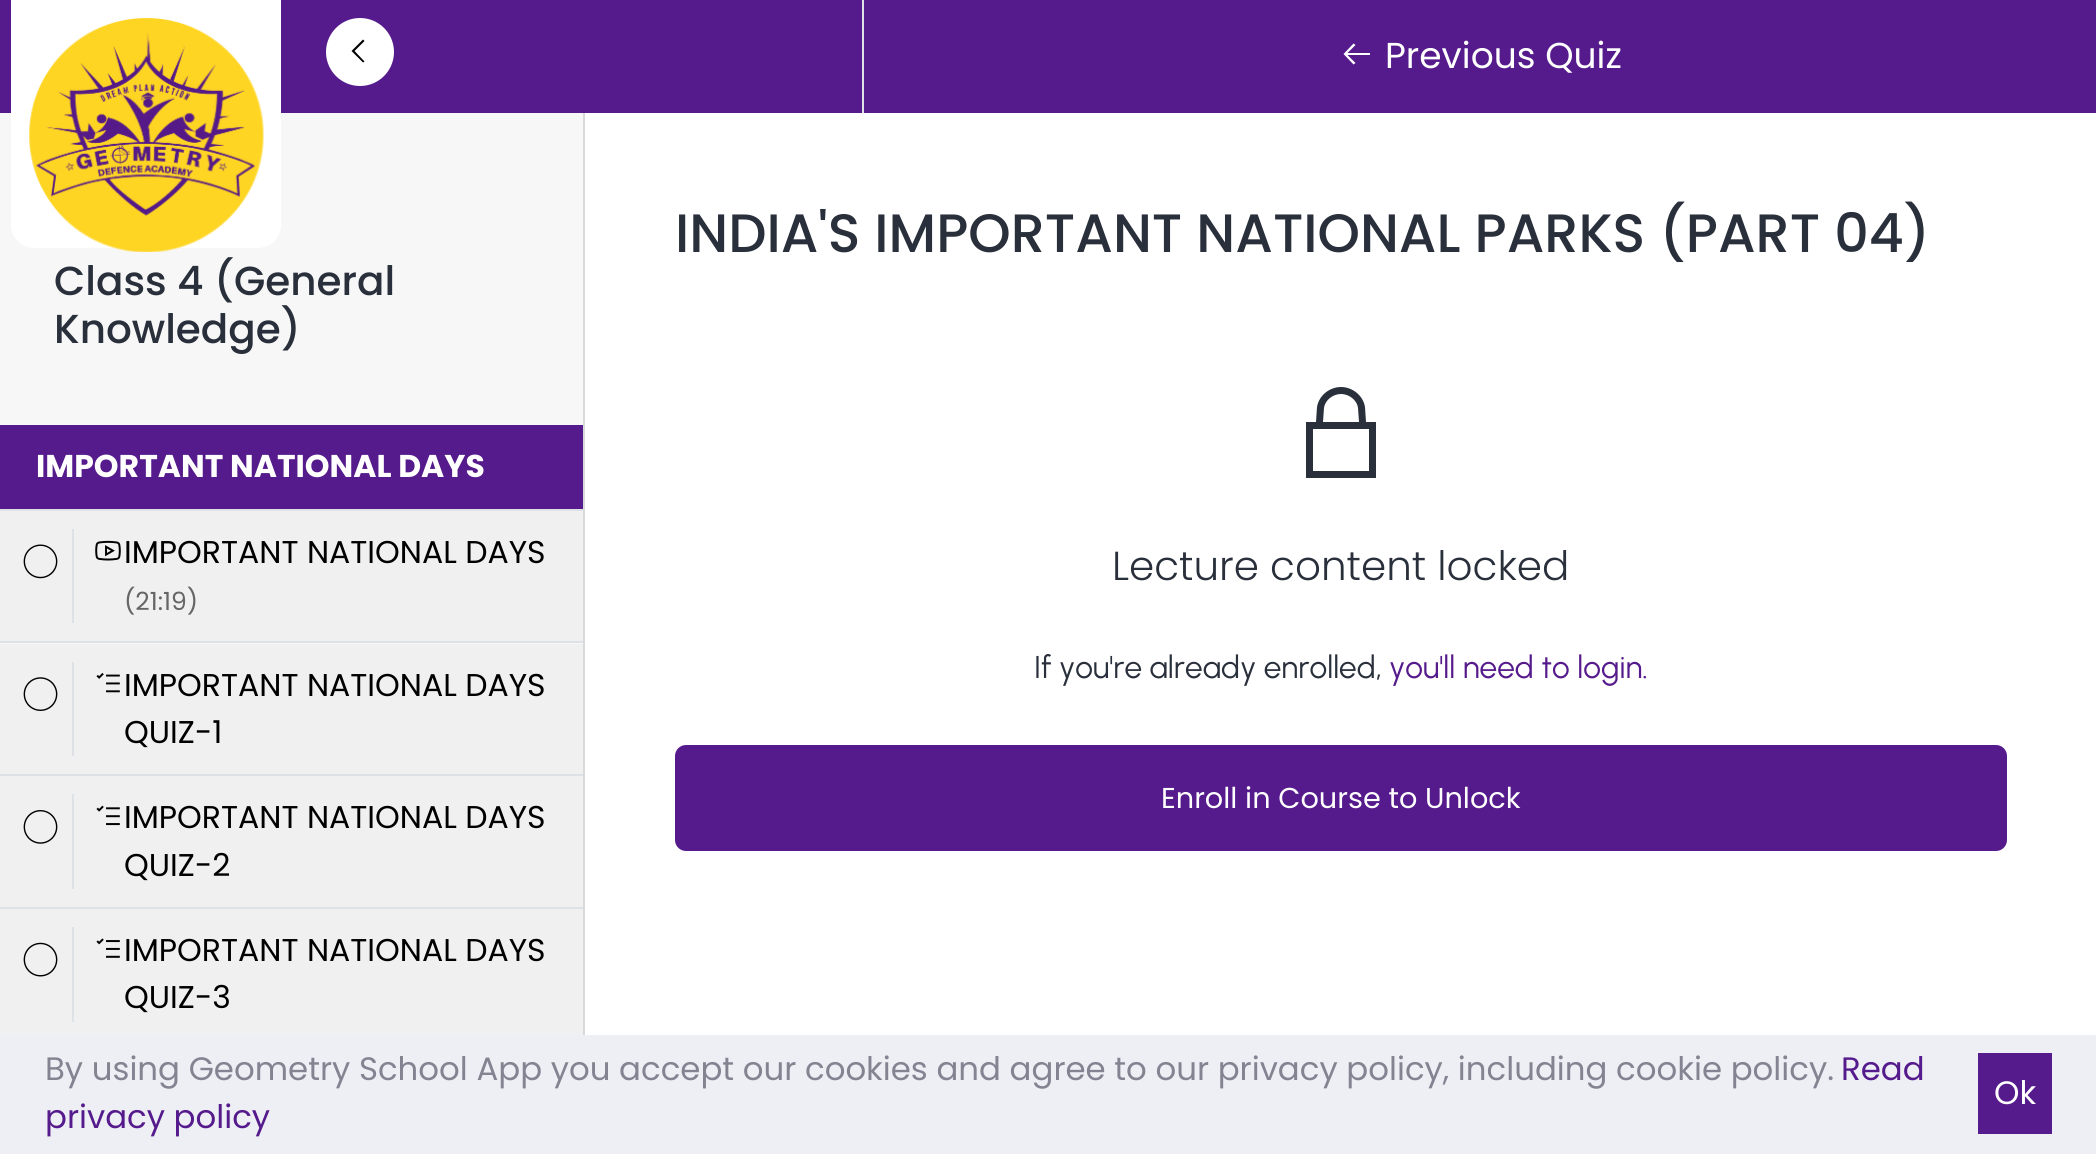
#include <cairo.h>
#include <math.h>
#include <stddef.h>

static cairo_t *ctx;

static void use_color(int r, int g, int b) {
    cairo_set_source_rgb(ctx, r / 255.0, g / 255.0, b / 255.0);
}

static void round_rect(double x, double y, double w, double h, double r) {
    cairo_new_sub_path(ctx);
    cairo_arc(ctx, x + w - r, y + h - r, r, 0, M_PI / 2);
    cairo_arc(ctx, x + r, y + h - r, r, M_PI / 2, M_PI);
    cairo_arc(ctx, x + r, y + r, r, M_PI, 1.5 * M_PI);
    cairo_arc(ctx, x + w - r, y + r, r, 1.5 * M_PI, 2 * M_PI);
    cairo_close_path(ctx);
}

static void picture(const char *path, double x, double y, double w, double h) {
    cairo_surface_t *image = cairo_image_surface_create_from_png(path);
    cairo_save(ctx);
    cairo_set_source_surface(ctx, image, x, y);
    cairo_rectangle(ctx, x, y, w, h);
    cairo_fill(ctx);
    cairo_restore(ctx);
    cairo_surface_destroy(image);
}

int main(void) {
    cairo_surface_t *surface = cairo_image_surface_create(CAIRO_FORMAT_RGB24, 2096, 1154);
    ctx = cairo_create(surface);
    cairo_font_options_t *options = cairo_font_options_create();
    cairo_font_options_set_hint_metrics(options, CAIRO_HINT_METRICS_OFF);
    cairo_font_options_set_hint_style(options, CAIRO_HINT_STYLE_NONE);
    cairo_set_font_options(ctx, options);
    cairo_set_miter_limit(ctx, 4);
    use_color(255, 255, 255);
    cairo_paint(ctx);
    use_color(85, 26, 139);
    cairo_rectangle(ctx, 0, 0, 2096, 113);
    cairo_fill(ctx);
    use_color(247, 247, 247);
    cairo_rectangle(ctx, 0, 113, 583, 531);
    cairo_fill(ctx);
    use_color(255, 255, 255);
    cairo_new_path(ctx);
    cairo_move_to(ctx, 11, 0);
    cairo_line_to(ctx, 281, 0);
    cairo_line_to(ctx, 281, 225);
    cairo_curve_to(ctx, 281, 237.5, 270.5, 248, 258, 248);
    cairo_line_to(ctx, 34, 248);
    cairo_curve_to(ctx, 21.5, 248, 11, 237.5, 11, 225);
    cairo_close_path(ctx);
    cairo_fill(ctx);
    picture("img1.png", 29, 18, 235, 234);
    use_color(222, 226, 230);
    cairo_rectangle(ctx, 862, 0, 2, 113);
    cairo_fill(ctx);
    use_color(255, 255, 255);
    cairo_arc(ctx, 360, 52, 34, 0, 2 * M_PI);
    cairo_fill(ctx);
    use_color(0, 0, 0);
    cairo_new_path(ctx);
    cairo_move_to(ctx, 363, 39.5);
    cairo_line_to(ctx, 351.5, 51);
    cairo_line_to(ctx, 363, 62.5);
    cairo_line_to(ctx, 364.5, 61.5);
    cairo_line_to(ctx, 354.5, 51);
    cairo_line_to(ctx, 364.5, 41);
    cairo_close_path(ctx);
    cairo_fill(ctx);
    use_color(255, 255, 255);
    cairo_new_path(ctx);
    cairo_move_to(ctx, 1353.5, 43.5);
    cairo_line_to(ctx, 1343.5, 54);
    cairo_line_to(ctx, 1353.5, 64.5);
    cairo_line_to(ctx, 1355.5, 63);
    cairo_line_to(ctx, 1347.5, 55);
    cairo_line_to(ctx, 1370, 55);
    cairo_line_to(ctx, 1370, 53);
    cairo_line_to(ctx, 1347.5, 53);
    cairo_line_to(ctx, 1355.5, 45);
    cairo_close_path(ctx);
    cairo_fill(ctx);
    cairo_select_font_face(ctx, "Poppins", CAIRO_FONT_SLANT_NORMAL, CAIRO_FONT_WEIGHT_NORMAL);
    cairo_set_font_size(ctx, 36);
    cairo_move_to(ctx, 1385, 68);
    cairo_show_text(ctx, "Previous Quiz");
    use_color(215, 218, 219);
    cairo_rectangle(ctx, 583, 113, 2, 922);
    cairo_fill(ctx);
    cairo_select_font_face(ctx, "Poppins Medium", CAIRO_FONT_SLANT_NORMAL, CAIRO_FONT_WEIGHT_NORMAL);
    cairo_set_font_size(ctx, 40.5);
    use_color(41, 48, 59);
    cairo_move_to(ctx, 54, 295);
    cairo_show_text(ctx, "Class 4 (General");
    cairo_move_to(ctx, 54, 343);
    cairo_show_text(ctx, "Knowledge)");
    use_color(85, 26, 139);
    cairo_rectangle(ctx, 0, 425, 583, 84);
    cairo_fill(ctx);
    use_color(222, 226, 230);
    cairo_rectangle(ctx, 0, 509, 583, 2);
    cairo_fill(ctx);
    cairo_select_font_face(ctx, "Poppins", CAIRO_FONT_SLANT_NORMAL, CAIRO_FONT_WEIGHT_BOLD);
    cairo_set_font_size(ctx, 31.5);
    use_color(255, 255, 255);
    cairo_move_to(ctx, 36, 477);
    cairo_show_text(ctx, "IMPORTANT NATIONAL DAYS");
    use_color(222, 226, 230);
    cairo_rectangle(ctx, 0, 641, 583, 2);
    cairo_fill(ctx);
    use_color(240, 240, 240);
    cairo_rectangle(ctx, 0, 511, 583, 130);
    cairo_fill(ctx);
    use_color(222, 226, 230);
    cairo_rectangle(ctx, 72, 529, 2, 94);
    cairo_fill(ctx);
    picture("img2.png", 23, 544, 35, 35);
    picture("img3.png", 95, 540, 26, 21);
    cairo_select_font_face(ctx, "Poppins", CAIRO_FONT_SLANT_NORMAL, CAIRO_FONT_WEIGHT_NORMAL);
    use_color(0, 0, 0);
    cairo_move_to(ctx, 124, 563);
    cairo_show_text(ctx, "IMPORTANT NATIONAL DAYS");
    cairo_set_font_size(ctx, 25);
    use_color(102, 102, 102);
    cairo_move_to(ctx, 124, 610);
    cairo_show_text(ctx, "(21:19)");
    use_color(222, 226, 230);
    cairo_rectangle(ctx, 0, 774, 583, 2);
    cairo_fill(ctx);
    use_color(240, 240, 240);
    cairo_rectangle(ctx, 0, 644, 583, 130);
    cairo_fill(ctx);
    use_color(222, 226, 230);
    cairo_rectangle(ctx, 72, 662, 2, 94);
    cairo_fill(ctx);
    picture("img4.png", 23, 677, 35, 34);
    picture("img5.png", 96, 673, 24, 20);
    cairo_set_font_size(ctx, 31.5);
    use_color(0, 0, 0);
    cairo_move_to(ctx, 124, 696);
    cairo_show_text(ctx, "IMPORTANT NATIONAL DAYS");
    cairo_move_to(ctx, 124, 743);
    cairo_show_text(ctx, "QUIZ-1");
    use_color(222, 226, 230);
    cairo_rectangle(ctx, 0, 907, 583, 2);
    cairo_fill(ctx);
    use_color(240, 240, 240);
    cairo_rectangle(ctx, 0, 776, 583, 131);
    cairo_fill(ctx);
    use_color(222, 226, 230);
    cairo_rectangle(ctx, 72, 794, 2, 95);
    cairo_fill(ctx);
    picture("img6.png", 23, 810, 35, 34);
    picture("img7.png", 96, 805, 24, 21);
    use_color(0, 0, 0);
    cairo_move_to(ctx, 124, 828);
    cairo_show_text(ctx, "IMPORTANT NATIONAL DAYS");
    cairo_move_to(ctx, 124, 876);
    cairo_show_text(ctx, "QUIZ-2");
    use_color(240, 240, 240);
    cairo_rectangle(ctx, 0, 909, 583, 126);
    cairo_fill(ctx);
    use_color(222, 226, 230);
    cairo_rectangle(ctx, 72, 927, 2, 95);
    cairo_fill(ctx);
    picture("img8.png", 23, 942, 35, 35);
    picture("img9.png", 96, 938, 24, 20);
    use_color(0, 0, 0);
    cairo_move_to(ctx, 124, 961);
    cairo_show_text(ctx, "IMPORTANT NATIONAL DAYS");
    cairo_move_to(ctx, 124, 1008);
    cairo_show_text(ctx, "QUIZ-3");
    cairo_select_font_face(ctx, "Poppins Medium", CAIRO_FONT_SLANT_NORMAL, CAIRO_FONT_WEIGHT_NORMAL);
    cairo_set_font_size(ctx, 54);
    use_color(41, 48, 59);
    cairo_move_to(ctx, 675, 252);
    cairo_show_text(ctx, "INDIA'S IMPORTANT NATIONAL PARKS (PART 04)");
    cairo_new_path(ctx);
    cairo_move_to(ctx, 1341, 387);
    cairo_curve_to(ctx, 1330, 387, 1319, 395, 1317, 407);
    cairo_line_to(ctx, 1316, 422);
    cairo_line_to(ctx, 1306, 422);
    cairo_line_to(ctx, 1306, 478);
    cairo_line_to(ctx, 1376, 478);
    cairo_line_to(ctx, 1376, 422);
    cairo_line_to(ctx, 1366, 422);
    cairo_line_to(ctx, 1365, 407);
    cairo_curve_to(ctx, 1363, 395, 1352, 387, 1341, 387);
    cairo_close_path(ctx);
    cairo_move_to(ctx, 1341, 394);
    cairo_curve_to(ctx, 1349, 394, 1357, 400, 1358, 408);
    cairo_line_to(ctx, 1359, 422);
    cairo_line_to(ctx, 1323, 422);
    cairo_line_to(ctx, 1324, 408);
    cairo_curve_to(ctx, 1325, 400, 1333, 394, 1341, 394);
    cairo_close_path(ctx);
    cairo_move_to(ctx, 1313, 429);
    cairo_line_to(ctx, 1369, 429);
    cairo_line_to(ctx, 1369, 471);
    cairo_line_to(ctx, 1313, 471);
    cairo_close_path(ctx);
    cairo_fill(ctx);
    cairo_select_font_face(ctx, "Poppins Light", CAIRO_FONT_SLANT_NORMAL, CAIRO_FONT_WEIGHT_NORMAL);
    cairo_set_font_size(ctx, 40.5);
    cairo_move_to(ctx, 1112, 580);
    cairo_show_text(ctx, "Lecture content locked");
    cairo_select_font_face(ctx, "Urbanist", CAIRO_FONT_SLANT_NORMAL, CAIRO_FONT_WEIGHT_NORMAL);
    cairo_set_font_size(ctx, 31.5);
    cairo_move_to(ctx, 1034, 678);
    cairo_show_text(ctx, "If you're already enrolled,");
    use_color(85, 26, 139);
    cairo_move_to(ctx, 1389, 678);
    cairo_show_text(ctx, "you'll need to login.");
    round_rect(676, 746, 1330, 104, 10);
    cairo_fill_preserve(ctx);
    cairo_stroke(ctx);
    cairo_select_font_face(ctx, "Poppins", CAIRO_FONT_SLANT_NORMAL, CAIRO_FONT_WEIGHT_NORMAL);
    cairo_set_font_size(ctx, 28.75);
    use_color(255, 255, 255);
    cairo_move_to(ctx, 1161, 808);
    cairo_show_text(ctx, "Enroll in Course to Unlock");
    use_color(237, 239, 245);
    cairo_rectangle(ctx, 0, 1035, 2096, 119);
    cairo_fill(ctx);
    cairo_set_font_size(ctx, 32.4);
    use_color(131, 131, 145);
    cairo_move_to(ctx, 45, 1080);
    cairo_show_text(ctx, "By using Geometry School App you accept our cookies and agree to our privacy policy, including cookie policy.");
    use_color(85, 26, 139);
    cairo_move_to(ctx, 1841, 1080);
    cairo_show_text(ctx, "Read");
    cairo_move_to(ctx, 45, 1128);
    cairo_show_text(ctx, "privacy policy");
    cairo_rectangle(ctx, 1978, 1053, 74, 81);
    cairo_fill(ctx);
    use_color(255, 255, 255);
    cairo_move_to(ctx, 1994, 1104);
    cairo_show_text(ctx, "Ok");
    cairo_surface_write_to_png(surface, "result.png");
    cairo_font_options_destroy(options);
    cairo_destroy(ctx);
    cairo_surface_destroy(surface);
    return 0;
}
